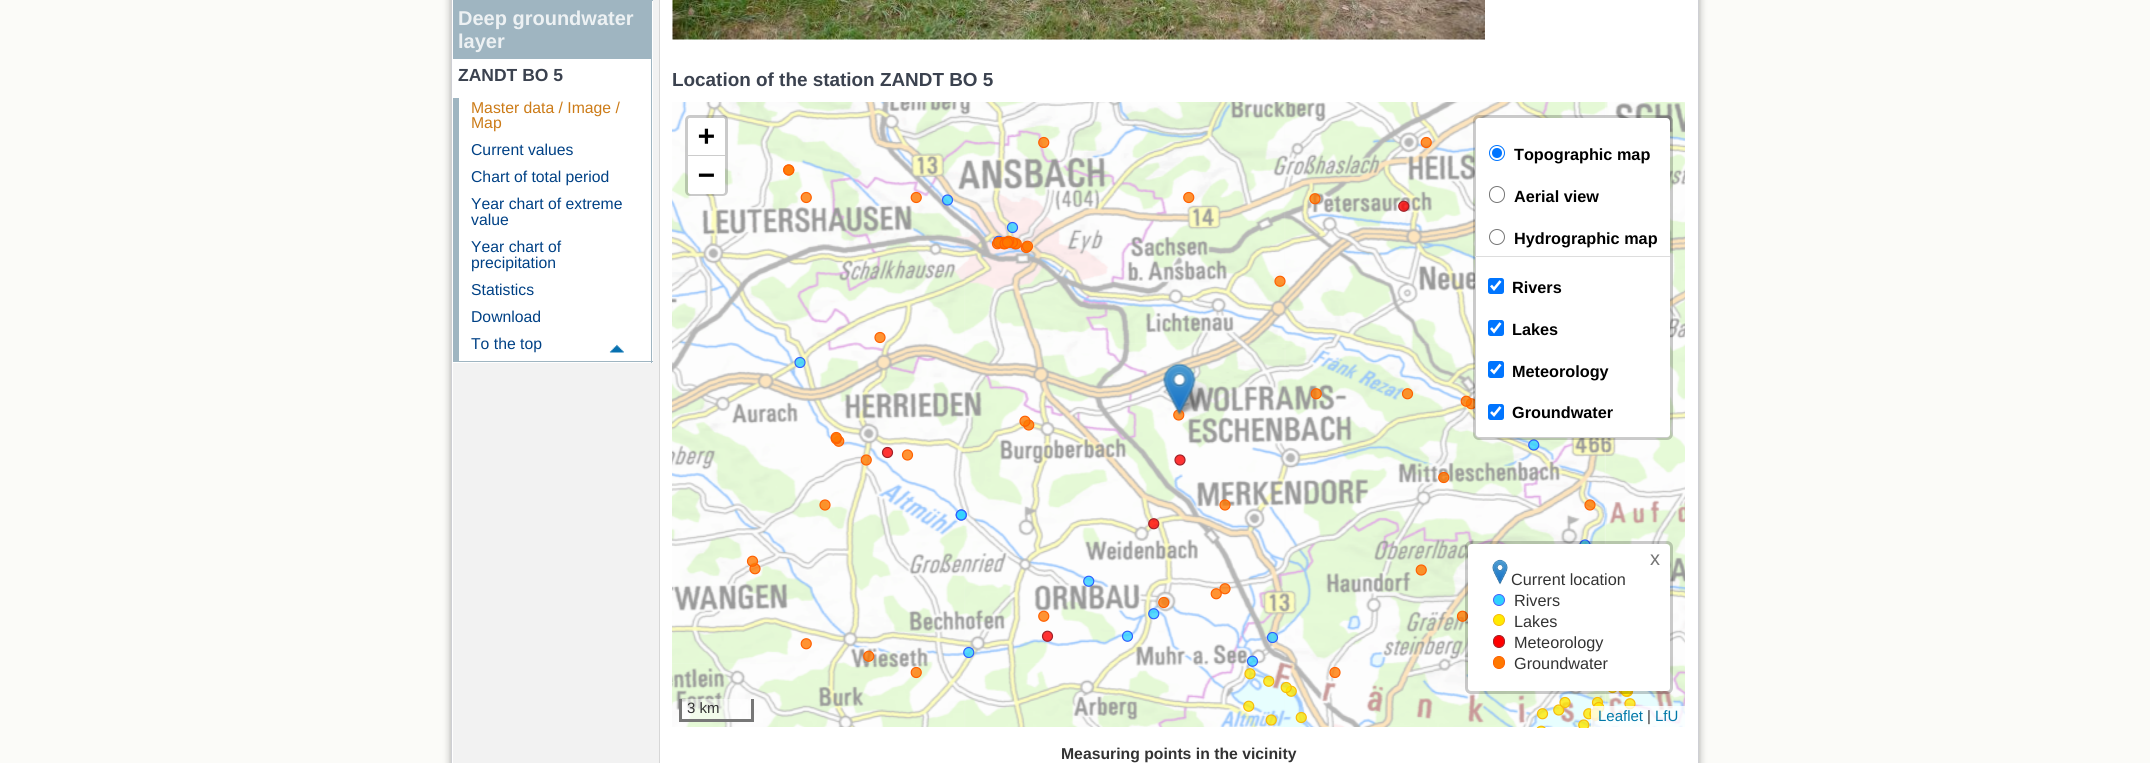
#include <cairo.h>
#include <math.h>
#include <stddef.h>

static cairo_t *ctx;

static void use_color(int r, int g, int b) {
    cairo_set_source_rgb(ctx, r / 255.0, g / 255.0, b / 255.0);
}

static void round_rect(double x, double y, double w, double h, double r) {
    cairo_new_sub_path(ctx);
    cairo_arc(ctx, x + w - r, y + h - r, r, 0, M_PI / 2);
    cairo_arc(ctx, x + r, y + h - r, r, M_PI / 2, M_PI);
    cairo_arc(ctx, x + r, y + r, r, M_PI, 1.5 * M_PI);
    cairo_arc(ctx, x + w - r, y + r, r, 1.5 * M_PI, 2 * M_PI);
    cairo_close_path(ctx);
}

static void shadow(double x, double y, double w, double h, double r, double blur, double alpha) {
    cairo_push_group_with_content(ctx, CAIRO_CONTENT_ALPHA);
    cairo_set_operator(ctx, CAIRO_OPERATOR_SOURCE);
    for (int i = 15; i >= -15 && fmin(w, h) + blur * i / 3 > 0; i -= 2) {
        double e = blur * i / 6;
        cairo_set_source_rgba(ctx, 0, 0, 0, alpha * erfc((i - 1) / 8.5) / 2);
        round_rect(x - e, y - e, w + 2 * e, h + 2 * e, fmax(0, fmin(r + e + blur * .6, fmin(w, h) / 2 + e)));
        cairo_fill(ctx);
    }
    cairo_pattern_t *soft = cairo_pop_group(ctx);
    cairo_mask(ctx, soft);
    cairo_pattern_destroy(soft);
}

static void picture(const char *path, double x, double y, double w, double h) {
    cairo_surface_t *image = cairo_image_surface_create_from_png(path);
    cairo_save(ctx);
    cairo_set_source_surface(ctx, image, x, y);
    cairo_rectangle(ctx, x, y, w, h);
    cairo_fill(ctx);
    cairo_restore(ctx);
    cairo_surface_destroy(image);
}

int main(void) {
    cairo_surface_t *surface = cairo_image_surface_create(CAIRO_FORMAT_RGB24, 2150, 763);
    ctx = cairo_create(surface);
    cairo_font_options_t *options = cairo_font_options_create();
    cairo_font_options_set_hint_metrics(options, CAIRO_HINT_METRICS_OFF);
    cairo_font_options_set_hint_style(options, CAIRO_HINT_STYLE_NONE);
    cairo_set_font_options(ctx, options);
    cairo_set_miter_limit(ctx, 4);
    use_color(251, 251, 248);
    cairo_paint(ctx);
    use_color(0, 0, 0);
    shadow(451, -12, 1248, 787, 0, 4, 0.35);
    use_color(255, 255, 255);
    cairo_rectangle(ctx, 452, 0, 1, 763);
    cairo_fill(ctx);
    use_color(206, 207, 212);
    cairo_rectangle(ctx, 1698, 0, 1, 763);
    cairo_fill(ctx);
    cairo_rectangle(ctx, 451, 0, 1, 763);
    cairo_fill(ctx);
    use_color(242, 242, 242);
    cairo_rectangle(ctx, 453, 0, 206, 763);
    cairo_fill(ctx);
    use_color(255, 255, 255);
    cairo_rectangle(ctx, 453, 1, 200, 362);
    cairo_fill(ctx);
    use_color(159, 181, 193);
    cairo_rectangle(ctx, 453, 0, 200, 1);
    cairo_fill(ctx);
    cairo_rectangle(ctx, 651, 0, 1, 363);
    cairo_fill(ctx);
    cairo_rectangle(ctx, 453, 361, 200, 1);
    cairo_fill(ctx);
    cairo_rectangle(ctx, 453, 1, 198, 58);
    cairo_fill(ctx);
    cairo_select_font_face(ctx, "Liberation Sans", CAIRO_FONT_SLANT_NORMAL, CAIRO_FONT_WEIGHT_BOLD);
    cairo_set_font_size(ctx, 20);
    use_color(237, 241, 243);
    cairo_move_to(ctx, 458, 25);
    cairo_show_text(ctx, "Deep groundwater");
    cairo_move_to(ctx, 458, 48);
    cairo_show_text(ctx, "layer");
    cairo_set_font_size(ctx, 17.5);
    use_color(59, 66, 79);
    cairo_move_to(ctx, 458, 81);
    cairo_show_text(ctx, "ZANDT BO 5");
    use_color(159, 181, 193);
    cairo_rectangle(ctx, 453, 98, 6, 263);
    cairo_fill(ctx);
    cairo_select_font_face(ctx, "Liberation Sans", CAIRO_FONT_SLANT_NORMAL, CAIRO_FONT_WEIGHT_NORMAL);
    cairo_set_font_size(ctx, 15.75);
    use_color(204, 123, 23);
    cairo_move_to(ctx, 471, 113);
    cairo_show_text(ctx, "Master data / Image /");
    cairo_move_to(ctx, 471, 128);
    cairo_show_text(ctx, "Map");
    use_color(0, 65, 133);
    cairo_move_to(ctx, 471, 155);
    cairo_show_text(ctx, "Current values");
    cairo_move_to(ctx, 471, 182);
    cairo_show_text(ctx, "Chart of total period");
    cairo_move_to(ctx, 471, 209);
    cairo_show_text(ctx, "Year chart of extreme");
    cairo_move_to(ctx, 471, 225);
    cairo_show_text(ctx, "value");
    cairo_move_to(ctx, 471, 252);
    cairo_show_text(ctx, "Year chart of");
    cairo_move_to(ctx, 471, 268);
    cairo_show_text(ctx, "precipitation");
    cairo_move_to(ctx, 471, 295);
    cairo_show_text(ctx, "Statistics");
    cairo_move_to(ctx, 471, 322);
    cairo_show_text(ctx, "Download");
    picture("img1.png", 609, 344, 15, 9);
    cairo_move_to(ctx, 471, 349);
    cairo_show_text(ctx, "To the top");
    use_color(255, 255, 255);
    cairo_rectangle(ctx, 660, 0, 1038, 763);
    cairo_fill(ctx);
    use_color(215, 215, 215);
    cairo_rectangle(ctx, 659, 0, 1, 763);
    cairo_fill(ctx);
    picture("img2.png", 672, 0, 813, 40);
    cairo_select_font_face(ctx, "Liberation Sans", CAIRO_FONT_SLANT_NORMAL, CAIRO_FONT_WEIGHT_BOLD);
    cairo_set_font_size(ctx, 18.9);
    use_color(59, 66, 79);
    cairo_move_to(ctx, 672, 86);
    cairo_show_text(ctx, "Location of the station ZANDT BO 5");
    picture("img8.png", 964, 343, 322, 321);
    picture("img9.png", 1284, 343, 321, 321);
    picture("img4.png", 964, 102, 322, 242);
    picture("img12.png", 964, 663, 322, 64);
    picture("img7.png", 672, 343, 294, 321);
    picture("img3.png", 672, 102, 294, 242);
    picture("img5.png", 1284, 102, 321, 242);
    picture("img13.png", 1284, 663, 321, 64);
    picture("img10.png", 1604, 343, 81, 321);
    picture("img6.png", 1604, 102, 81, 242);
    picture("img11.png", 672, 663, 294, 64);
    picture("img14.png", 1604, 663, 81, 64);
    picture("img17.png", 1175, 379, 37, 36);
    picture("img15.png", 746, 136, 890, 592);
    picture("img16.png", 1163, 363, 33, 52);
    round_rect(686.5, 116.5, 40, 78, 3.5);
    cairo_set_source_rgba(ctx, 0, 0, 0, 0.2);
    cairo_set_line_width(ctx, 3);
    cairo_stroke(ctx);
    use_color(255, 255, 255);
    cairo_new_path(ctx);
    cairo_move_to(ctx, 690.5, 118);
    cairo_line_to(ctx, 722.5, 118);
    cairo_curve_to(ctx, 724, 118, 725, 119, 725, 120.5);
    cairo_line_to(ctx, 725, 156);
    cairo_line_to(ctx, 688, 156);
    cairo_line_to(ctx, 688, 120.5);
    cairo_curve_to(ctx, 688, 119, 689, 118, 690.5, 118);
    cairo_close_path(ctx);
    cairo_fill(ctx);
    use_color(204, 204, 204);
    cairo_rectangle(ctx, 688, 155, 37, 1);
    cairo_fill(ctx);
    cairo_select_font_face(ctx, "DejaVu Sans Mono", CAIRO_FONT_SLANT_NORMAL, CAIRO_FONT_WEIGHT_BOLD);
    cairo_set_font_size(ctx, 28);
    use_color(0, 0, 0);
    cairo_move_to(ctx, 698, 145);
    cairo_show_text(ctx, "+");
    use_color(255, 255, 255);
    cairo_new_path(ctx);
    cairo_move_to(ctx, 688, 156);
    cairo_line_to(ctx, 725, 156);
    cairo_line_to(ctx, 725, 191.5);
    cairo_curve_to(ctx, 725, 193, 724, 194, 722.5, 194);
    cairo_line_to(ctx, 690.5, 194);
    cairo_curve_to(ctx, 689, 194, 688, 193, 688, 191.5);
    cairo_close_path(ctx);
    cairo_fill(ctx);
    use_color(0, 0, 0);
    cairo_move_to(ctx, 698, 184);
    cairo_show_text(ctx, "−");
    use_color(255, 255, 255);
    round_rect(1475, 118, 195, 320, 4);
    cairo_fill(ctx);
    round_rect(1474.5, 116.5, 197, 322, 4.5);
    cairo_set_source_rgba(ctx, 0, 0, 0, 0.2);
    cairo_stroke(ctx);
    cairo_arc(ctx, 1497, 153, 7.5, 0, 2 * M_PI);
    use_color(0, 117, 255);
    cairo_set_line_width(ctx, 1);
    cairo_stroke(ctx);
    cairo_arc(ctx, 1497, 153, 5, 0, 2 * M_PI);
    cairo_fill(ctx);
    cairo_select_font_face(ctx, "Liberation Sans", CAIRO_FONT_SLANT_NORMAL, CAIRO_FONT_WEIGHT_BOLD);
    cairo_set_font_size(ctx, 16.25);
    use_color(0, 0, 0);
    cairo_move_to(ctx, 1514, 160);
    cairo_show_text(ctx, "Topographic map");
    round_rect(1489.5, 186.5, 15, 16, 7.5);
    use_color(118, 118, 118);
    cairo_stroke(ctx);
    use_color(0, 0, 0);
    cairo_move_to(ctx, 1514, 202);
    cairo_show_text(ctx, "Aerial view");
    cairo_new_path(ctx);
    cairo_arc(ctx, 1497, 237, 7.5, 0, 2 * M_PI);
    use_color(118, 118, 118);
    cairo_stroke(ctx);
    use_color(0, 0, 0);
    cairo_move_to(ctx, 1514, 244);
    cairo_show_text(ctx, "Hydrographic map");
    use_color(221, 221, 221);
    cairo_rectangle(ctx, 1475, 256, 195, 1);
    cairo_fill(ctx);
    use_color(0, 117, 255);
    round_rect(1488, 278, 16, 16, 2.5);
    cairo_fill(ctx);
    cairo_new_path(ctx);
    cairo_move_to(ctx, 1491, 285.5);
    cairo_line_to(ctx, 1494, 289);
    cairo_line_to(ctx, 1500.5, 281);
    use_color(255, 255, 255);
    cairo_set_line_width(ctx, 2.6);
    cairo_stroke(ctx);
    use_color(0, 0, 0);
    cairo_move_to(ctx, 1512, 293);
    cairo_show_text(ctx, "Rivers");
    use_color(0, 117, 255);
    round_rect(1488, 320, 16, 16, 2.5);
    cairo_fill(ctx);
    cairo_new_path(ctx);
    cairo_move_to(ctx, 1491, 328);
    cairo_line_to(ctx, 1494, 331.5);
    cairo_line_to(ctx, 1500.5, 323);
    use_color(255, 255, 255);
    cairo_stroke(ctx);
    use_color(0, 0, 0);
    cairo_move_to(ctx, 1512, 335);
    cairo_show_text(ctx, "Lakes");
    use_color(0, 117, 255);
    round_rect(1488, 361, 16, 17, 2.5);
    cairo_fill(ctx);
    cairo_new_path(ctx);
    cairo_move_to(ctx, 1491, 369.5);
    cairo_line_to(ctx, 1494, 372.5);
    cairo_line_to(ctx, 1500.5, 364.5);
    use_color(255, 255, 255);
    cairo_stroke(ctx);
    use_color(0, 0, 0);
    cairo_move_to(ctx, 1512, 377);
    cairo_show_text(ctx, "Meteorology");
    use_color(0, 117, 255);
    round_rect(1488, 404, 16, 16, 2.5);
    cairo_fill(ctx);
    cairo_new_path(ctx);
    cairo_move_to(ctx, 1491, 412);
    cairo_line_to(ctx, 1494, 415);
    cairo_line_to(ctx, 1500.5, 407);
    use_color(255, 255, 255);
    cairo_stroke(ctx);
    use_color(0, 0, 0);
    cairo_move_to(ctx, 1512, 418);
    cairo_show_text(ctx, "Groundwater");
    cairo_set_source_rgba(ctx, 1, 1, 1, 0.5);
    cairo_rectangle(ctx, 682, 699, 66, 20);
    cairo_fill(ctx);
    use_color(119, 119, 119);
    cairo_rectangle(ctx, 751, 699, 3, 22);
    cairo_fill(ctx);
    cairo_rectangle(ctx, 679, 719, 75, 3);
    cairo_fill(ctx);
    cairo_rectangle(ctx, 679, 699, 3, 22);
    cairo_fill(ctx);
    cairo_select_font_face(ctx, "Liberation Sans", CAIRO_FONT_SLANT_NORMAL, CAIRO_FONT_WEIGHT_NORMAL);
    cairo_set_font_size(ctx, 15);
    use_color(51, 51, 51);
    cairo_move_to(ctx, 687, 713);
    cairo_show_text(ctx, "3 km");
    use_color(255, 255, 255);
    round_rect(1468, 544, 202, 147, 4);
    cairo_fill(ctx);
    round_rect(1466.5, 542.5, 205, 150, 4.5);
    cairo_set_source_rgba(ctx, 0, 0, 0, 0.2);
    cairo_set_line_width(ctx, 3);
    cairo_stroke(ctx);
    cairo_set_font_size(ctx, 20);
    use_color(117, 117, 117);
    cairo_move_to(ctx, 1650, 565);
    cairo_show_text(ctx, "x");
    picture("img18.png", 1492, 559, 16, 26);
    cairo_set_font_size(ctx, 16.25);
    use_color(51, 51, 51);
    cairo_move_to(ctx, 1511, 585);
    cairo_show_text(ctx, "Current location");
    use_color(46, 209, 254);
    cairo_new_path(ctx);
    cairo_arc(ctx, 1499, 600, 5.5, 0, 2 * M_PI);
    cairo_fill_preserve(ctx);
    use_color(72, 96, 250);
    cairo_set_line_width(ctx, 1);
    cairo_stroke(ctx);
    use_color(51, 51, 51);
    cairo_move_to(ctx, 1514, 606);
    cairo_show_text(ctx, "Rivers");
    use_color(255, 234, 1);
    cairo_new_path(ctx);
    cairo_arc(ctx, 1499, 620, 5.5, 0, 2 * M_PI);
    cairo_fill_preserve(ctx);
    use_color(247, 186, 11);
    cairo_stroke(ctx);
    use_color(51, 51, 51);
    cairo_move_to(ctx, 1514, 627);
    cairo_show_text(ctx, "Lakes");
    use_color(255, 0, 0);
    round_rect(1493.5, 635.5, 11, 12, 5.5);
    cairo_fill_preserve(ctx);
    use_color(160, 33, 40);
    cairo_stroke(ctx);
    use_color(51, 51, 51);
    cairo_move_to(ctx, 1514, 648);
    cairo_show_text(ctx, "Meteorology");
    use_color(255, 120, 0);
    round_rect(1493.5, 656.5, 11, 12, 5.5);
    cairo_fill_preserve(ctx);
    use_color(255, 96, 0);
    cairo_stroke(ctx);
    use_color(51, 51, 51);
    cairo_move_to(ctx, 1514, 669);
    cairo_show_text(ctx, "Groundwater");
    cairo_set_source_rgba(ctx, 1, 1, 1, 0.8);
    cairo_rectangle(ctx, 1591, 706, 94, 21);
    cairo_fill(ctx);
    cairo_set_font_size(ctx, 15);
    use_color(0, 120, 168);
    cairo_move_to(ctx, 1598, 721);
    cairo_show_text(ctx, "Leaflet");
    use_color(51, 51, 51);
    cairo_move_to(ctx, 1647, 721);
    cairo_show_text(ctx, "|");
    use_color(0, 120, 168);
    cairo_move_to(ctx, 1655, 721);
    cairo_show_text(ctx, "LfU");
    cairo_select_font_face(ctx, "Liberation Sans", CAIRO_FONT_SLANT_NORMAL, CAIRO_FONT_WEIGHT_BOLD);
    cairo_set_font_size(ctx, 15.75);
    use_color(51, 51, 51);
    cairo_move_to(ctx, 1061, 759);
    cairo_show_text(ctx, "Measuring points in the vicinity");
    cairo_surface_write_to_png(surface, "result.png");
    cairo_font_options_destroy(options);
    cairo_destroy(ctx);
    cairo_surface_destroy(surface);
    return 0;
}
